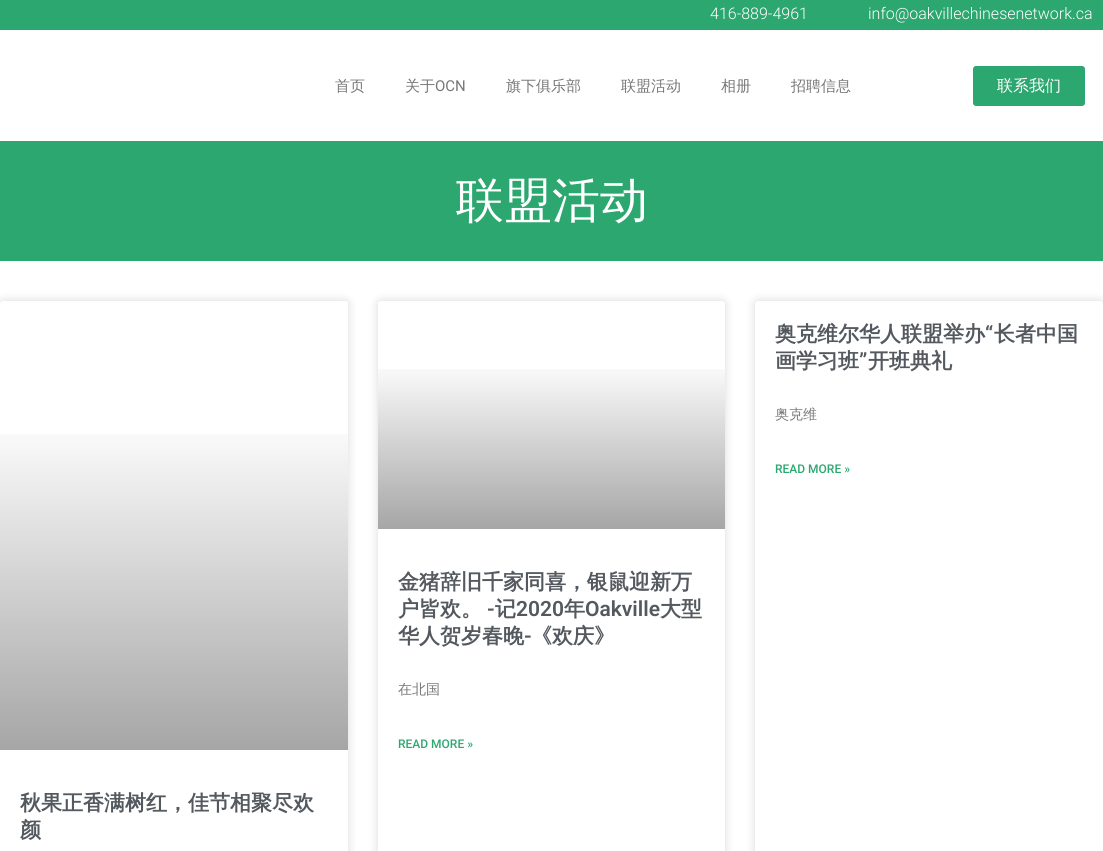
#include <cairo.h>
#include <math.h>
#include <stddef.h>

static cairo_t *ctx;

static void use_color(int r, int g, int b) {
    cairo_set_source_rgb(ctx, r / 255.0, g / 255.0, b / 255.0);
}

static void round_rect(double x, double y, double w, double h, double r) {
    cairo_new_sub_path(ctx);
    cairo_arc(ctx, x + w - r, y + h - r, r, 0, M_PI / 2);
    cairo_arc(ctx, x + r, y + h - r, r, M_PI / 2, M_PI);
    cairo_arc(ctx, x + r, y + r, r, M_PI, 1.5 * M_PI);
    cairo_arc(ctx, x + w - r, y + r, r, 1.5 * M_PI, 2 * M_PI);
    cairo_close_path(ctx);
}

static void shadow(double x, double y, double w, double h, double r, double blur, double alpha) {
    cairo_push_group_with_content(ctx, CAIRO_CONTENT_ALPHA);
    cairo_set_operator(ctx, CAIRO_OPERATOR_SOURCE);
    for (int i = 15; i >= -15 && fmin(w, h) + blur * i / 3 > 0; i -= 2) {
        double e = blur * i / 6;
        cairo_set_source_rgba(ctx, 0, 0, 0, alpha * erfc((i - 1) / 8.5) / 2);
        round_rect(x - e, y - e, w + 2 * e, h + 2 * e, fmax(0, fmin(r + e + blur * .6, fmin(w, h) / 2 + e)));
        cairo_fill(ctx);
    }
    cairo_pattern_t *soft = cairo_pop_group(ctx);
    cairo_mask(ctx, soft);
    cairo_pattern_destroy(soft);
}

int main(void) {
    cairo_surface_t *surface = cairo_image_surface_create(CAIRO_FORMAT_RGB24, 1103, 851);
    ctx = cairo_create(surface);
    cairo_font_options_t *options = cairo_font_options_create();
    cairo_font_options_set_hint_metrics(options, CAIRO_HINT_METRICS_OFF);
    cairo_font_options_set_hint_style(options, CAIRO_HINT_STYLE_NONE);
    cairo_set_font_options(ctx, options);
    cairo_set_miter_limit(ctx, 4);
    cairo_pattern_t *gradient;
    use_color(255, 255, 255);
    cairo_paint(ctx);
    use_color(43, 167, 111);
    cairo_rectangle(ctx, 0, 0, 1103, 30);
    cairo_fill(ctx);
    cairo_select_font_face(ctx, "Roboto Light", CAIRO_FONT_SLANT_NORMAL, CAIRO_FONT_WEIGHT_NORMAL);
    cairo_set_font_size(ctx, 16);
    use_color(255, 255, 255);
    cairo_move_to(ctx, 710, 19);
    cairo_show_text(ctx, "416-889-4961");
    cairo_move_to(ctx, 868, 19);
    cairo_show_text(ctx, "info@oakvillechinesenetwork.ca");
    cairo_select_font_face(ctx, "WenQuanYi Zen Hei Medium", CAIRO_FONT_SLANT_NORMAL, CAIRO_FONT_WEIGHT_NORMAL);
    cairo_set_font_size(ctx, 15);
    use_color(119, 119, 119);
    cairo_move_to(ctx, 335, 91);
    cairo_show_text(ctx, "首页");
    cairo_move_to(ctx, 405, 91);
    cairo_show_text(ctx, "关于");
    cairo_select_font_face(ctx, "Roboto", CAIRO_FONT_SLANT_NORMAL, CAIRO_FONT_WEIGHT_NORMAL);
    cairo_move_to(ctx, 435, 91);
    cairo_show_text(ctx, "OCN");
    cairo_select_font_face(ctx, "WenQuanYi Zen Hei Medium", CAIRO_FONT_SLANT_NORMAL, CAIRO_FONT_WEIGHT_NORMAL);
    cairo_move_to(ctx, 506, 91);
    cairo_show_text(ctx, "旗下俱乐部");
    cairo_move_to(ctx, 621, 91);
    cairo_show_text(ctx, "联盟活动");
    cairo_move_to(ctx, 721, 91);
    cairo_show_text(ctx, "相册");
    cairo_move_to(ctx, 791, 91);
    cairo_show_text(ctx, "招聘信息");
    use_color(43, 167, 111);
    round_rect(973, 66, 112, 40, 3);
    cairo_fill(ctx);
    cairo_set_font_size(ctx, 16);
    use_color(255, 255, 255);
    cairo_move_to(ctx, 997, 91);
    cairo_show_text(ctx, "联系我们");
    use_color(43, 167, 111);
    cairo_rectangle(ctx, 0, 141, 1103, 120);
    cairo_fill(ctx);
    cairo_set_font_size(ctx, 48);
    use_color(255, 255, 255);
    cairo_move_to(ctx, 456, 217);
    cairo_show_text(ctx, "联盟活动");
    use_color(0, 0, 0);
    shadow(755, 301, 348, 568, 3, 5, 0.15);
    use_color(255, 255, 255);
    round_rect(755, 301, 348, 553, 3);
    cairo_fill(ctx);
    cairo_select_font_face(ctx, "WenQuanYi Zen Hei", CAIRO_FONT_SLANT_NORMAL, CAIRO_FONT_WEIGHT_BOLD);
    cairo_set_font_size(ctx, 21);
    use_color(84, 89, 95);
    cairo_move_to(ctx, 775, 341);
    cairo_show_text(ctx, "奥克维尔华人联盟举办");
    cairo_select_font_face(ctx, "Roboto SemiBold", CAIRO_FONT_SLANT_NORMAL, CAIRO_FONT_WEIGHT_NORMAL);
    cairo_move_to(ctx, 985, 341);
    cairo_show_text(ctx, "“");
    cairo_select_font_face(ctx, "WenQuanYi Zen Hei", CAIRO_FONT_SLANT_NORMAL, CAIRO_FONT_WEIGHT_BOLD);
    cairo_move_to(ctx, 994, 341);
    cairo_show_text(ctx, "长者中国");
    cairo_move_to(ctx, 775, 368);
    cairo_show_text(ctx, "画学习班");
    cairo_select_font_face(ctx, "Roboto SemiBold", CAIRO_FONT_SLANT_NORMAL, CAIRO_FONT_WEIGHT_NORMAL);
    cairo_move_to(ctx, 859, 368);
    cairo_show_text(ctx, "”");
    cairo_select_font_face(ctx, "WenQuanYi Zen Hei", CAIRO_FONT_SLANT_NORMAL, CAIRO_FONT_WEIGHT_BOLD);
    cairo_move_to(ctx, 868, 368);
    cairo_show_text(ctx, "开班典礼");
    cairo_select_font_face(ctx, "WenQuanYi Zen Hei Medium", CAIRO_FONT_SLANT_NORMAL, CAIRO_FONT_WEIGHT_NORMAL);
    cairo_set_font_size(ctx, 14);
    use_color(119, 119, 119);
    cairo_move_to(ctx, 775, 419);
    cairo_show_text(ctx, "奥克维");
    cairo_select_font_face(ctx, "Roboto Medium", CAIRO_FONT_SLANT_NORMAL, CAIRO_FONT_WEIGHT_NORMAL);
    cairo_set_font_size(ctx, 12);
    use_color(43, 167, 111);
    cairo_move_to(ctx, 775, 473);
    cairo_show_text(ctx, "READ MORE »");
    use_color(0, 0, 0);
    shadow(378, 301, 347, 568, 3, 5, 0.15);
    use_color(255, 255, 255);
    round_rect(378, 301, 347, 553, 3);
    cairo_fill(ctx);
    gradient = cairo_pattern_create_linear(552, 529, 552, 301);
    cairo_pattern_add_color_stop_rgba(gradient, 0, 0, 0, 0, 0.35);
    cairo_pattern_add_color_stop_rgba(gradient, 0.75, 0, 0, 0, 0);
    cairo_set_source(ctx, gradient);
    cairo_pattern_destroy(gradient);
    cairo_rectangle(ctx, 378, 369, 347, 160);
    cairo_fill(ctx);
    cairo_select_font_face(ctx, "WenQuanYi Zen Hei", CAIRO_FONT_SLANT_NORMAL, CAIRO_FONT_WEIGHT_BOLD);
    cairo_set_font_size(ctx, 21);
    use_color(84, 89, 95);
    cairo_move_to(ctx, 398, 589);
    cairo_show_text(ctx, "金猪辞旧千家同喜，银鼠迎新万");
    cairo_move_to(ctx, 398, 616);
    cairo_show_text(ctx, "户皆欢。");
    cairo_select_font_face(ctx, "Roboto SemiBold", CAIRO_FONT_SLANT_NORMAL, CAIRO_FONT_WEIGHT_NORMAL);
    cairo_move_to(ctx, 487, 616);
    cairo_show_text(ctx, "-");
    cairo_select_font_face(ctx, "WenQuanYi Zen Hei", CAIRO_FONT_SLANT_NORMAL, CAIRO_FONT_WEIGHT_BOLD);
    cairo_move_to(ctx, 495, 616);
    cairo_show_text(ctx, "记");
    cairo_select_font_face(ctx, "Roboto SemiBold", CAIRO_FONT_SLANT_NORMAL, CAIRO_FONT_WEIGHT_NORMAL);
    cairo_move_to(ctx, 516, 616);
    cairo_show_text(ctx, "2020");
    cairo_select_font_face(ctx, "WenQuanYi Zen Hei", CAIRO_FONT_SLANT_NORMAL, CAIRO_FONT_WEIGHT_BOLD);
    cairo_move_to(ctx, 564, 616);
    cairo_show_text(ctx, "年");
    cairo_select_font_face(ctx, "Roboto SemiBold", CAIRO_FONT_SLANT_NORMAL, CAIRO_FONT_WEIGHT_NORMAL);
    cairo_move_to(ctx, 585, 616);
    cairo_show_text(ctx, "Oakville");
    cairo_select_font_face(ctx, "WenQuanYi Zen Hei", CAIRO_FONT_SLANT_NORMAL, CAIRO_FONT_WEIGHT_BOLD);
    cairo_move_to(ctx, 660, 616);
    cairo_show_text(ctx, "大型");
    cairo_move_to(ctx, 398, 643);
    cairo_show_text(ctx, "华人贺岁春晚");
    cairo_select_font_face(ctx, "Roboto SemiBold", CAIRO_FONT_SLANT_NORMAL, CAIRO_FONT_WEIGHT_NORMAL);
    cairo_move_to(ctx, 524, 643);
    cairo_show_text(ctx, "-");
    cairo_select_font_face(ctx, "WenQuanYi Zen Hei", CAIRO_FONT_SLANT_NORMAL, CAIRO_FONT_WEIGHT_BOLD);
    cairo_move_to(ctx, 531, 643);
    cairo_show_text(ctx, "《欢庆》");
    cairo_select_font_face(ctx, "WenQuanYi Zen Hei Medium", CAIRO_FONT_SLANT_NORMAL, CAIRO_FONT_WEIGHT_NORMAL);
    cairo_set_font_size(ctx, 14);
    use_color(119, 119, 119);
    cairo_move_to(ctx, 398, 694);
    cairo_show_text(ctx, "在北国");
    cairo_select_font_face(ctx, "Roboto Medium", CAIRO_FONT_SLANT_NORMAL, CAIRO_FONT_WEIGHT_NORMAL);
    cairo_set_font_size(ctx, 12);
    use_color(43, 167, 111);
    cairo_move_to(ctx, 398, 748);
    cairo_show_text(ctx, "READ MORE »");
    use_color(0, 0, 0);
    shadow(0, 301, 348, 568, 3, 5, 0.15);
    use_color(255, 255, 255);
    round_rect(0, 301, 348, 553, 3);
    cairo_fill(ctx);
    gradient = cairo_pattern_create_linear(174, 750, 174, 301);
    cairo_pattern_add_color_stop_rgba(gradient, 0, 0, 0, 0, 0.35);
    cairo_pattern_add_color_stop_rgba(gradient, 0.75, 0, 0, 0, 0);
    cairo_set_source(ctx, gradient);
    cairo_pattern_destroy(gradient);
    cairo_rectangle(ctx, 0, 434, 348, 316);
    cairo_fill(ctx);
    cairo_select_font_face(ctx, "WenQuanYi Zen Hei", CAIRO_FONT_SLANT_NORMAL, CAIRO_FONT_WEIGHT_BOLD);
    cairo_set_font_size(ctx, 21);
    use_color(84, 89, 95);
    cairo_move_to(ctx, 20, 810);
    cairo_show_text(ctx, "秋果正香满树红，佳节相聚尽欢");
    cairo_move_to(ctx, 20, 837);
    cairo_show_text(ctx, "颜");
    cairo_surface_write_to_png(surface, "result.png");
    cairo_font_options_destroy(options);
    cairo_destroy(ctx);
    cairo_surface_destroy(surface);
    return 0;
}
